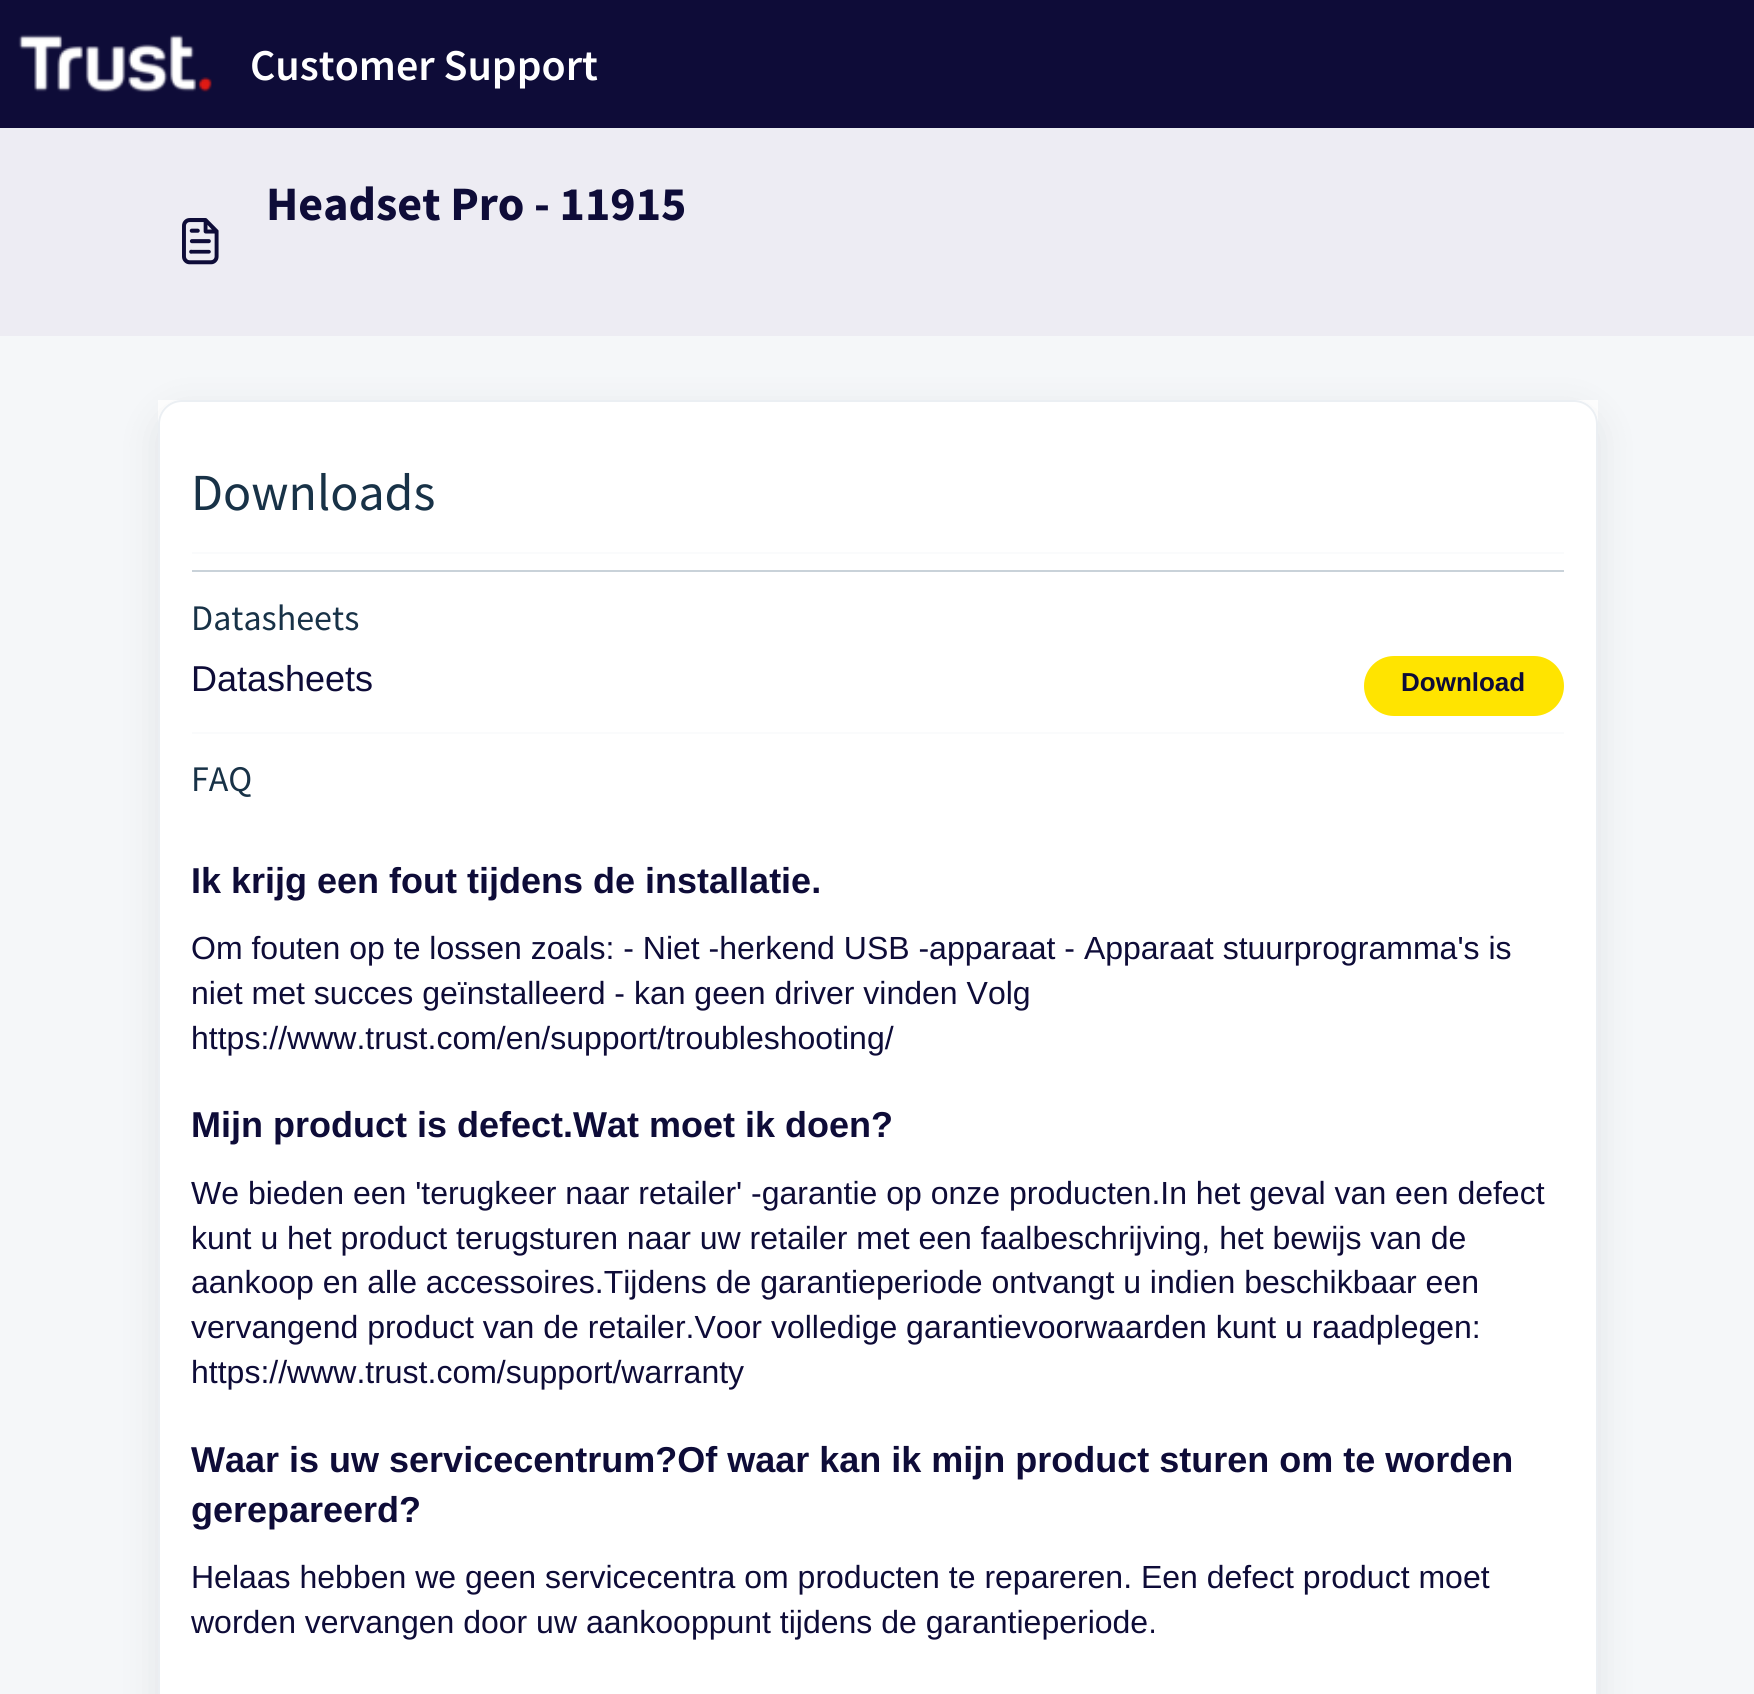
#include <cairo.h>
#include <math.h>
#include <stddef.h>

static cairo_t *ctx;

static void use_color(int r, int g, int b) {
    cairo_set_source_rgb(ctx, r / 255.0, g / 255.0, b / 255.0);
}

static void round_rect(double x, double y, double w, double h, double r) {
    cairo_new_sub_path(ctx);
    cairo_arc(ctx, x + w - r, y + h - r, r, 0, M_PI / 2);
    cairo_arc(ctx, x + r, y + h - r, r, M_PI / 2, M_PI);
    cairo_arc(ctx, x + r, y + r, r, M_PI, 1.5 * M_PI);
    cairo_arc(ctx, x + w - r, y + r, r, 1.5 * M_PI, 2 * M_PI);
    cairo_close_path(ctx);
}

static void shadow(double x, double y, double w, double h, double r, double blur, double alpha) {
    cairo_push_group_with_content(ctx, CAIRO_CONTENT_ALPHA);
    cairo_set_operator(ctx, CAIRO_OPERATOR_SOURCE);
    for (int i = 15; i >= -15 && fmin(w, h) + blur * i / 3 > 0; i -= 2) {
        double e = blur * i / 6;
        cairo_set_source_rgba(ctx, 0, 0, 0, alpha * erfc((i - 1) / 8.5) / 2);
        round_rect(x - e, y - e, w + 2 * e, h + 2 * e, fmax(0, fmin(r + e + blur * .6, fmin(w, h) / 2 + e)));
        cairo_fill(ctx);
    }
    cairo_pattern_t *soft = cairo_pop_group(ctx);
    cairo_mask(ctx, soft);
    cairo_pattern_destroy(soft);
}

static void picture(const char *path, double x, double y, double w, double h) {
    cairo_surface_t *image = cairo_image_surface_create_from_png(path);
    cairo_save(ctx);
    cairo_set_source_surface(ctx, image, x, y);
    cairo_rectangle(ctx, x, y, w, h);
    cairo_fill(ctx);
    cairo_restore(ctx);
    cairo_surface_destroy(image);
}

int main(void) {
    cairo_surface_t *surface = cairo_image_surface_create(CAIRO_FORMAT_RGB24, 1754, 1694);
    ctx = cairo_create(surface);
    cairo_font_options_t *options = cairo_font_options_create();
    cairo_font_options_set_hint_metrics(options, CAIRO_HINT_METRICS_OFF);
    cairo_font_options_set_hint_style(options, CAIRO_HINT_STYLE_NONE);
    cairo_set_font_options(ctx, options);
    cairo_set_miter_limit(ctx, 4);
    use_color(245, 247, 249);
    cairo_paint(ctx);
    use_color(14, 12, 56);
    cairo_rectangle(ctx, 0, 0, 1754, 128);
    cairo_fill(ctx);
    use_color(235, 239, 243);
    cairo_rectangle(ctx, 0, 128, 1754, 2);
    cairo_fill(ctx);
    picture("img1.png", 18, 34, 194, 59);
    cairo_select_font_face(ctx, "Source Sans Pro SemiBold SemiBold", CAIRO_FONT_SLANT_NORMAL, CAIRO_FONT_WEIGHT_NORMAL);
    cairo_set_font_size(ctx, 44);
    use_color(255, 255, 255);
    cairo_move_to(ctx, 250, 80);
    cairo_show_text(ctx, "Customer Support");
    use_color(237, 236, 243);
    cairo_rectangle(ctx, 0, 130, 1754, 206);
    cairo_fill(ctx);
    cairo_select_font_face(ctx, "Source Sans Pro", CAIRO_FONT_SLANT_NORMAL, CAIRO_FONT_WEIGHT_BOLD);
    cairo_set_font_size(ctx, 48);
    use_color(14, 12, 56);
    cairo_move_to(ctx, 266, 220);
    cairo_show_text(ctx, "Headset Pro - 11915");
    picture("img2.png", 182, 218, 37, 47);
    use_color(255, 255, 255);
    cairo_rectangle(ctx, 158, 400, 1440, 1294);
    cairo_fill(ctx);
    cairo_save(ctx);
    cairo_set_fill_rule(ctx, CAIRO_FILL_RULE_EVEN_ODD);
    cairo_new_path(ctx);
    cairo_move_to(ctx, 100, 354);
    cairo_line_to(ctx, 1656, 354);
    cairo_line_to(ctx, 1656, 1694);
    cairo_line_to(ctx, 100, 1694);
    cairo_close_path(ctx);
    cairo_move_to(ctx, 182, 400);
    cairo_line_to(ctx, 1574, 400);
    cairo_curve_to(ctx, 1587.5, 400, 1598, 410.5, 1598, 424);
    cairo_line_to(ctx, 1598, 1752);
    cairo_curve_to(ctx, 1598, 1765.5, 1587.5, 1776, 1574, 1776);
    cairo_line_to(ctx, 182, 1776);
    cairo_curve_to(ctx, 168.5, 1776, 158, 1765.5, 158, 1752);
    cairo_line_to(ctx, 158, 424);
    cairo_curve_to(ctx, 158, 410.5, 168.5, 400, 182, 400);
    cairo_close_path(ctx);
    cairo_clip(ctx);
    use_color(39, 49, 58);
    shadow(158, 412, 1440, 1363, 24, 19, 0.1);
    cairo_restore(ctx);
    round_rect(159, 401, 1438, 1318, 23);
    use_color(235, 239, 243);
    cairo_stroke(ctx);
    cairo_select_font_face(ctx, "Source Sans Pro", CAIRO_FONT_SLANT_NORMAL, CAIRO_FONT_WEIGHT_NORMAL);
    cairo_set_font_size(ctx, 52);
    use_color(24, 50, 71);
    cairo_move_to(ctx, 191, 510);
    cairo_show_text(ctx, "Downloads");
    use_color(250, 251, 252);
    cairo_rectangle(ctx, 192, 552, 1372, 2);
    cairo_fill(ctx);
    use_color(201, 210, 217);
    cairo_rectangle(ctx, 192, 570, 1372, 2);
    cairo_fill(ctx);
    cairo_set_font_size(ctx, 36);
    use_color(24, 50, 71);
    cairo_move_to(ctx, 191, 630);
    cairo_show_text(ctx, "Datasheets");
    cairo_select_font_face(ctx, "Liberation Sans", CAIRO_FONT_SLANT_NORMAL, CAIRO_FONT_WEIGHT_NORMAL);
    use_color(14, 12, 56);
    cairo_move_to(ctx, 191, 691);
    cairo_show_text(ctx, "Datasheets");
    use_color(255, 228, 0);
    round_rect(1364, 656, 200, 60, 30);
    cairo_fill(ctx);
    cairo_select_font_face(ctx, "Liberation Sans", CAIRO_FONT_SLANT_NORMAL, CAIRO_FONT_WEIGHT_BOLD);
    cairo_set_font_size(ctx, 26);
    use_color(14, 12, 56);
    cairo_move_to(ctx, 1401, 691);
    cairo_show_text(ctx, "Download");
    use_color(250, 251, 252);
    cairo_rectangle(ctx, 192, 732, 1372, 2);
    cairo_fill(ctx);
    cairo_select_font_face(ctx, "Source Sans Pro", CAIRO_FONT_SLANT_NORMAL, CAIRO_FONT_WEIGHT_NORMAL);
    cairo_set_font_size(ctx, 36);
    use_color(24, 50, 71);
    cairo_move_to(ctx, 191, 791);
    cairo_show_text(ctx, "FAQ");
    cairo_select_font_face(ctx, "Liberation Sans", CAIRO_FONT_SLANT_NORMAL, CAIRO_FONT_WEIGHT_BOLD);
    use_color(14, 12, 56);
    cairo_move_to(ctx, 191, 893);
    cairo_show_text(ctx, "Ik krijg een fout tijdens de installatie.");
    cairo_select_font_face(ctx, "Liberation Sans", CAIRO_FONT_SLANT_NORMAL, CAIRO_FONT_WEIGHT_NORMAL);
    cairo_set_font_size(ctx, 32);
    cairo_move_to(ctx, 191, 959);
    cairo_show_text(ctx, "Om fouten op te lossen zoals: - Niet -herkend USB -apparaat - Apparaat stuurprogramma's is");
    cairo_move_to(ctx, 191, 1004);
    cairo_show_text(ctx, "niet met succes geïnstalleerd - kan geen driver vinden Volg");
    cairo_move_to(ctx, 191, 1049);
    cairo_show_text(ctx, "https://www.trust.com/en/support/troubleshooting/");
    cairo_select_font_face(ctx, "Liberation Sans", CAIRO_FONT_SLANT_NORMAL, CAIRO_FONT_WEIGHT_BOLD);
    cairo_set_font_size(ctx, 36);
    cairo_move_to(ctx, 191, 1137);
    cairo_show_text(ctx, "Mijn product is defect.Wat moet ik doen?");
    cairo_select_font_face(ctx, "Liberation Sans", CAIRO_FONT_SLANT_NORMAL, CAIRO_FONT_WEIGHT_NORMAL);
    cairo_set_font_size(ctx, 32);
    cairo_move_to(ctx, 191, 1204);
    cairo_show_text(ctx, "We bieden een 'terugkeer naar retailer' -garantie op onze producten.In het geval van een defect");
    cairo_move_to(ctx, 191, 1249);
    cairo_show_text(ctx, "kunt u het product terugsturen naar uw retailer met een faalbeschrijving, het bewijs van de");
    cairo_move_to(ctx, 191, 1293);
    cairo_show_text(ctx, "aankoop en alle accessoires.Tijdens de garantieperiode ontvangt u indien beschikbaar een");
    cairo_move_to(ctx, 191, 1338);
    cairo_show_text(ctx, "vervangend product van de retailer.Voor volledige garantievoorwaarden kunt u raadplegen:");
    cairo_move_to(ctx, 191, 1383);
    cairo_show_text(ctx, "https://www.trust.com/support/warranty");
    cairo_select_font_face(ctx, "Liberation Sans", CAIRO_FONT_SLANT_NORMAL, CAIRO_FONT_WEIGHT_BOLD);
    cairo_set_font_size(ctx, 36);
    cairo_move_to(ctx, 191, 1472);
    cairo_show_text(ctx, "Waar is uw servicecentrum?Of waar kan ik mijn product sturen om te worden");
    cairo_move_to(ctx, 191, 1522);
    cairo_show_text(ctx, "gerepareerd?");
    cairo_select_font_face(ctx, "Liberation Sans", CAIRO_FONT_SLANT_NORMAL, CAIRO_FONT_WEIGHT_NORMAL);
    cairo_set_font_size(ctx, 32);
    cairo_move_to(ctx, 191, 1588);
    cairo_show_text(ctx, "Helaas hebben we geen servicecentra om producten te repareren. Een defect product moet");
    cairo_move_to(ctx, 191, 1633);
    cairo_show_text(ctx, "worden vervangen door uw aankooppunt tijdens de garantieperiode.");
    cairo_surface_write_to_png(surface, "result.png");
    cairo_font_options_destroy(options);
    cairo_destroy(ctx);
    cairo_surface_destroy(surface);
    return 0;
}
